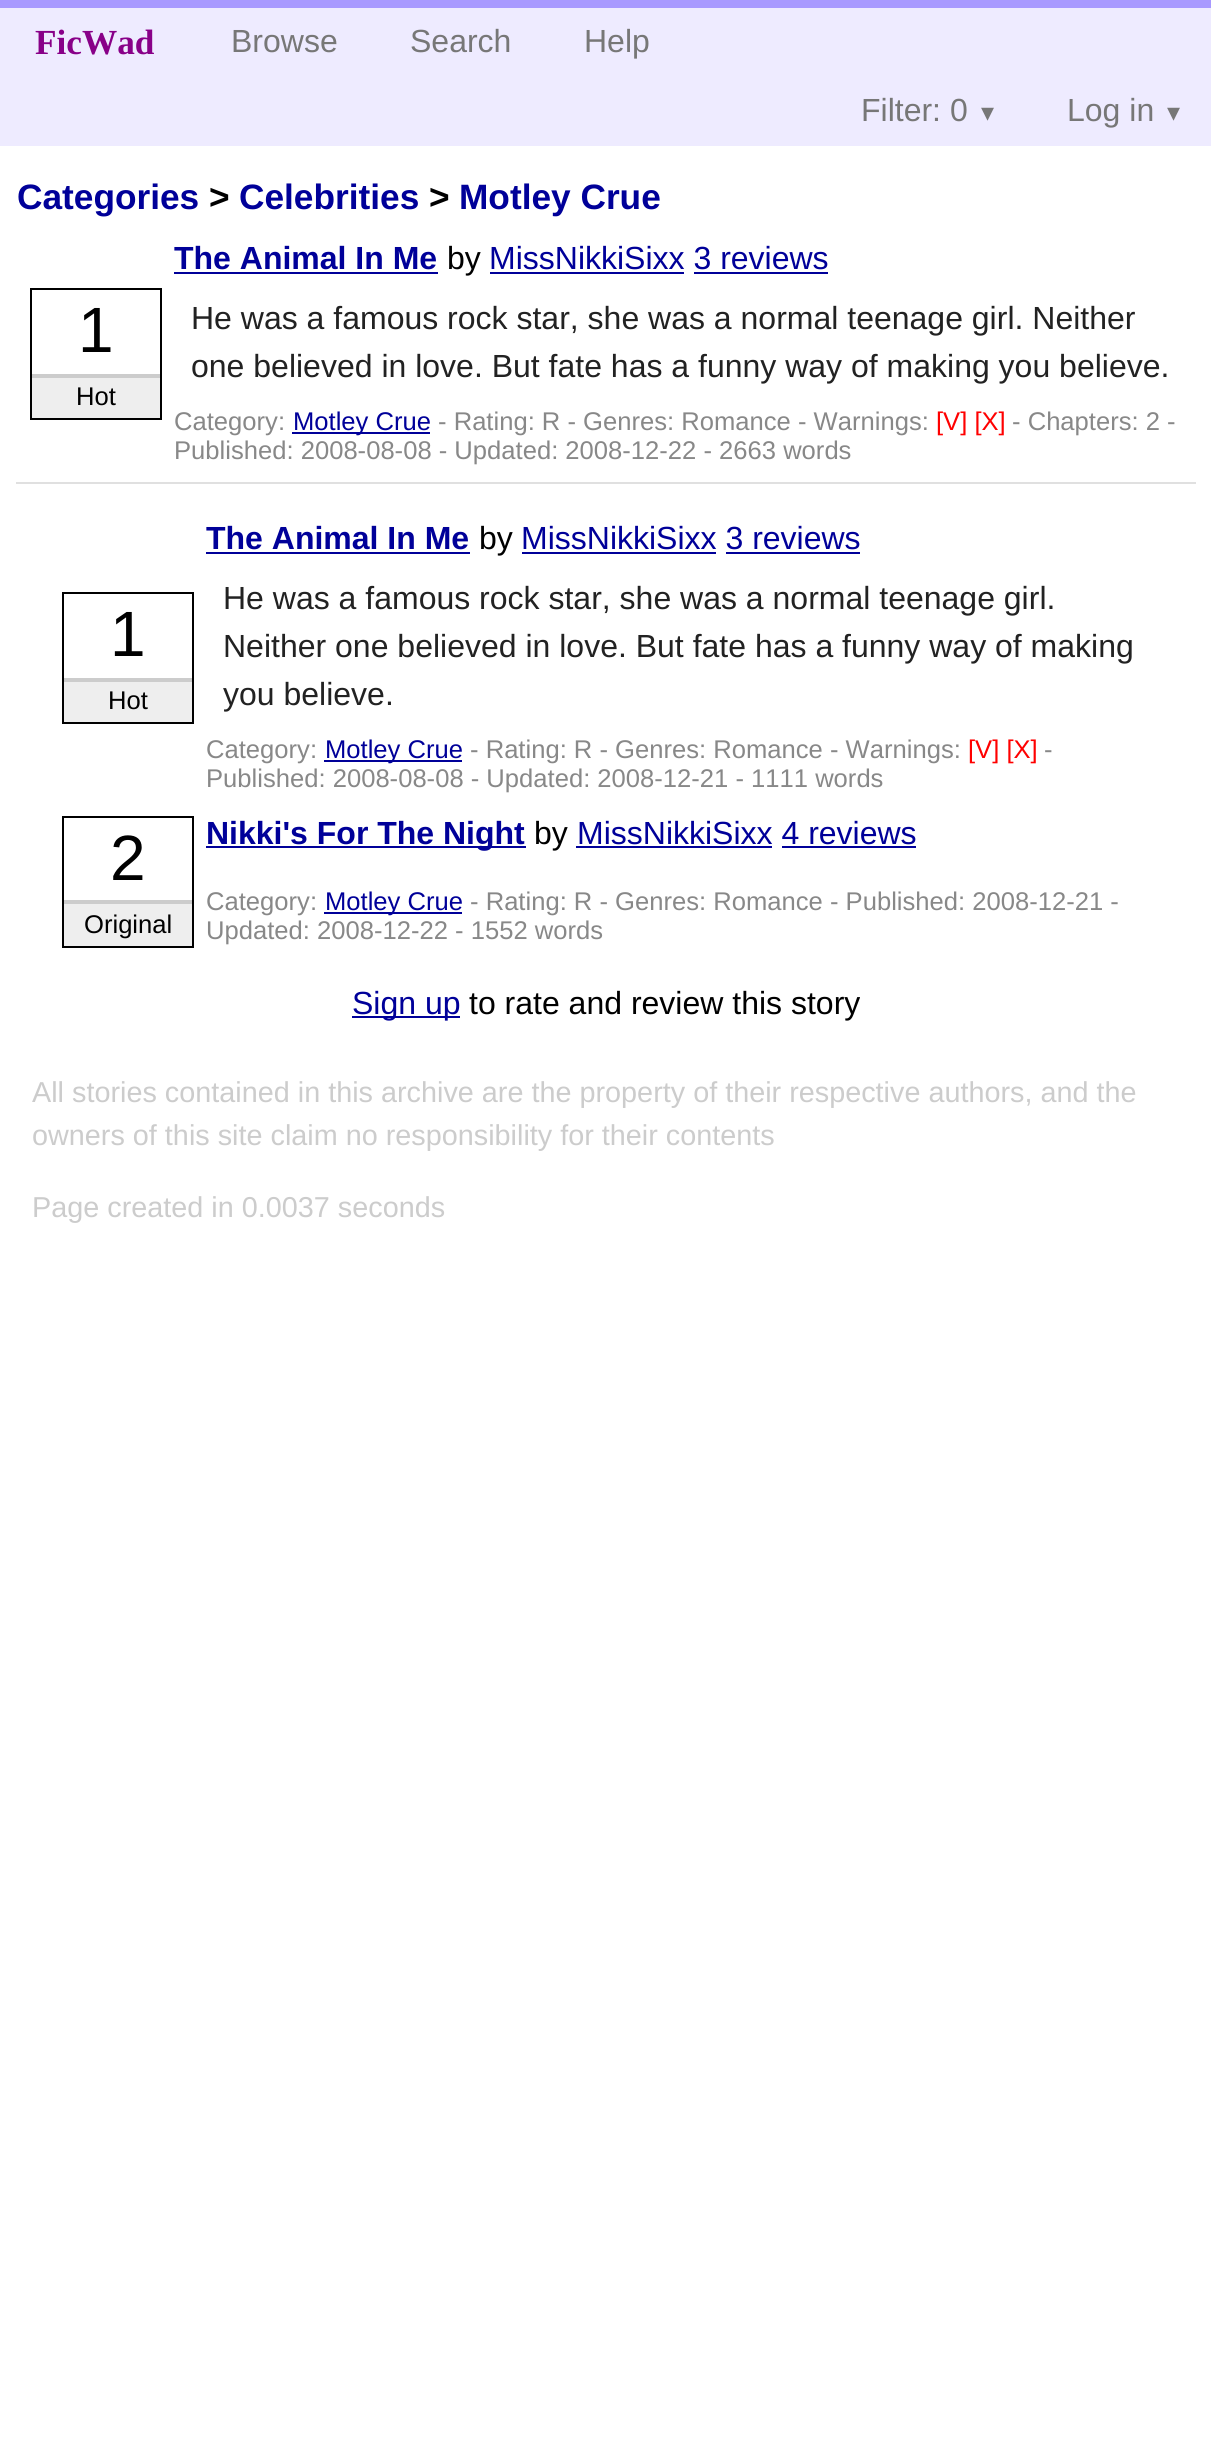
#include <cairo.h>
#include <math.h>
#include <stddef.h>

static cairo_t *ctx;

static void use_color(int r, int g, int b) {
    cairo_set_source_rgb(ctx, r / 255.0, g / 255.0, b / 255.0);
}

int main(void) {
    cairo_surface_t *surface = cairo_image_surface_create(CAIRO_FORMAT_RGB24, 1211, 2443);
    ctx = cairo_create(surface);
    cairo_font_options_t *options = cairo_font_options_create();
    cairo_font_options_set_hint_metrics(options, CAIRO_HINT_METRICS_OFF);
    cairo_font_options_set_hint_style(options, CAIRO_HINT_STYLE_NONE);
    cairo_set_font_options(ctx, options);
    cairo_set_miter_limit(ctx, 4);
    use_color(255, 255, 255);
    cairo_paint(ctx);
    use_color(238, 235, 255);
    cairo_rectangle(ctx, 0, 8, 1211, 138);
    cairo_fill(ctx);
    use_color(168, 153, 255);
    cairo_rectangle(ctx, 0, 0, 1211, 8);
    cairo_fill(ctx);
    cairo_select_font_face(ctx, "Liberation Serif", CAIRO_FONT_SLANT_NORMAL, CAIRO_FONT_WEIGHT_BOLD);
    cairo_set_font_size(ctx, 35.25);
    use_color(136, 0, 136);
    cairo_move_to(ctx, 35, 54);
    cairo_show_text(ctx, "FicWad");
    cairo_select_font_face(ctx, "Liberation Sans", CAIRO_FONT_SLANT_NORMAL, CAIRO_FONT_WEIGHT_NORMAL);
    cairo_set_font_size(ctx, 32);
    use_color(119, 119, 119);
    cairo_move_to(ctx, 231, 52);
    cairo_show_text(ctx, "Browse");
    cairo_move_to(ctx, 410, 52);
    cairo_show_text(ctx, "Search");
    cairo_move_to(ctx, 584, 52);
    cairo_show_text(ctx, "Help");
    cairo_move_to(ctx, 861, 121);
    cairo_show_text(ctx, "Filter: 0");
    cairo_select_font_face(ctx, "DejaVu Sans", CAIRO_FONT_SLANT_NORMAL, CAIRO_FONT_WEIGHT_NORMAL);
    cairo_set_font_size(ctx, 26);
    cairo_move_to(ctx, 981, 121);
    cairo_show_text(ctx, "▾");
    cairo_select_font_face(ctx, "Liberation Sans", CAIRO_FONT_SLANT_NORMAL, CAIRO_FONT_WEIGHT_NORMAL);
    cairo_set_font_size(ctx, 32);
    cairo_move_to(ctx, 1067, 121);
    cairo_show_text(ctx, "Log in");
    cairo_select_font_face(ctx, "DejaVu Sans", CAIRO_FONT_SLANT_NORMAL, CAIRO_FONT_WEIGHT_NORMAL);
    cairo_set_font_size(ctx, 26);
    cairo_move_to(ctx, 1167, 121);
    cairo_show_text(ctx, "▾");
    cairo_select_font_face(ctx, "Liberation Sans", CAIRO_FONT_SLANT_NORMAL, CAIRO_FONT_WEIGHT_BOLD);
    cairo_set_font_size(ctx, 35.25);
    use_color(0, 0, 153);
    cairo_move_to(ctx, 17, 209);
    cairo_show_text(ctx, "Categories");
    use_color(0, 0, 0);
    cairo_move_to(ctx, 209, 209);
    cairo_show_text(ctx, ">");
    use_color(0, 0, 153);
    cairo_move_to(ctx, 239, 209);
    cairo_show_text(ctx, "Celebrities");
    use_color(0, 0, 0);
    cairo_move_to(ctx, 429, 209);
    cairo_show_text(ctx, ">");
    use_color(0, 0, 153);
    cairo_move_to(ctx, 459, 209);
    cairo_show_text(ctx, "Motley Crue");
    use_color(224, 224, 224);
    cairo_rectangle(ctx, 16, 482, 1180, 2);
    cairo_fill(ctx);
    cairo_set_font_size(ctx, 32);
    use_color(0, 0, 153);
    cairo_move_to(ctx, 174, 269);
    cairo_show_text(ctx, "The Animal In Me");
    cairo_rectangle(ctx, 174, 272, 264, 2);
    cairo_fill(ctx);
    cairo_select_font_face(ctx, "Liberation Sans", CAIRO_FONT_SLANT_NORMAL, CAIRO_FONT_WEIGHT_NORMAL);
    use_color(0, 0, 0);
    cairo_move_to(ctx, 447, 269);
    cairo_show_text(ctx, "by");
    use_color(0, 0, 153);
    cairo_move_to(ctx, 489, 269);
    cairo_show_text(ctx, "MissNikkiSixx 3 reviews");
    cairo_rectangle(ctx, 490, 272, 194, 2);
    cairo_fill(ctx);
    cairo_rectangle(ctx, 694, 272, 134, 2);
    cairo_fill(ctx);
    cairo_rectangle(ctx, 31, 289, 130, 130);
    use_color(0, 0, 0);
    cairo_stroke(ctx);
    cairo_set_font_size(ctx, 64);
    cairo_move_to(ctx, 78, 352);
    cairo_show_text(ctx, "1");
    use_color(238, 238, 238);
    cairo_rectangle(ctx, 32, 378, 128, 40);
    cairo_fill(ctx);
    use_color(204, 204, 204);
    cairo_rectangle(ctx, 32, 374, 128, 4);
    cairo_fill(ctx);
    cairo_set_font_size(ctx, 25.6);
    use_color(0, 0, 0);
    cairo_move_to(ctx, 76, 405);
    cairo_show_text(ctx, "Hot");
    cairo_set_font_size(ctx, 32);
    use_color(34, 34, 34);
    cairo_move_to(ctx, 191, 329);
    cairo_show_text(ctx, "He was a famous rock star, she was a normal teenage girl. Neither");
    cairo_move_to(ctx, 191, 377);
    cairo_show_text(ctx, "one believed in love. But fate has a funny way of making you believe.");
    cairo_set_font_size(ctx, 25.6);
    use_color(136, 136, 136);
    cairo_move_to(ctx, 174, 430);
    cairo_show_text(ctx, "Category:");
    use_color(0, 0, 153);
    cairo_rectangle(ctx, 292, 432, 138, 2);
    cairo_fill(ctx);
    cairo_move_to(ctx, 293, 430);
    cairo_show_text(ctx, "Motley Crue");
    use_color(136, 136, 136);
    cairo_move_to(ctx, 438, 430);
    cairo_show_text(ctx, "- Rating: R - Genres: Romance - Warnings:");
    use_color(255, 0, 0);
    cairo_move_to(ctx, 936, 430);
    cairo_show_text(ctx, "[V] [X]");
    use_color(136, 136, 136);
    cairo_move_to(ctx, 1012, 430);
    cairo_show_text(ctx, "- Chapters: 2 -");
    cairo_move_to(ctx, 174, 459);
    cairo_show_text(ctx, "Published: 2008-08-08 - Updated: 2008-12-22 - 2663 words");
    cairo_select_font_face(ctx, "Liberation Sans", CAIRO_FONT_SLANT_NORMAL, CAIRO_FONT_WEIGHT_BOLD);
    cairo_set_font_size(ctx, 32);
    use_color(0, 0, 153);
    cairo_move_to(ctx, 206, 549);
    cairo_show_text(ctx, "The Animal In Me");
    cairo_rectangle(ctx, 206, 552, 264, 2);
    cairo_fill(ctx);
    cairo_select_font_face(ctx, "Liberation Sans", CAIRO_FONT_SLANT_NORMAL, CAIRO_FONT_WEIGHT_NORMAL);
    use_color(0, 0, 0);
    cairo_move_to(ctx, 479, 549);
    cairo_show_text(ctx, "by");
    use_color(0, 0, 153);
    cairo_move_to(ctx, 521, 549);
    cairo_show_text(ctx, "MissNikkiSixx 3 reviews");
    cairo_rectangle(ctx, 522, 552, 194, 2);
    cairo_fill(ctx);
    cairo_rectangle(ctx, 726, 552, 134, 2);
    cairo_fill(ctx);
    cairo_rectangle(ctx, 63, 593, 130, 130);
    use_color(0, 0, 0);
    cairo_stroke(ctx);
    cairo_set_font_size(ctx, 64);
    cairo_move_to(ctx, 110, 656);
    cairo_show_text(ctx, "1");
    use_color(238, 238, 238);
    cairo_rectangle(ctx, 64, 682, 128, 40);
    cairo_fill(ctx);
    use_color(204, 204, 204);
    cairo_rectangle(ctx, 64, 678, 128, 4);
    cairo_fill(ctx);
    cairo_set_font_size(ctx, 25.6);
    use_color(0, 0, 0);
    cairo_move_to(ctx, 108, 709);
    cairo_show_text(ctx, "Hot");
    cairo_set_font_size(ctx, 32);
    use_color(34, 34, 34);
    cairo_move_to(ctx, 223, 609);
    cairo_show_text(ctx, "He was a famous rock star, she was a normal teenage girl.");
    cairo_move_to(ctx, 223, 657);
    cairo_show_text(ctx, "Neither one believed in love. But fate has a funny way of making");
    cairo_move_to(ctx, 223, 705);
    cairo_show_text(ctx, "you believe.");
    cairo_set_font_size(ctx, 25.6);
    use_color(136, 136, 136);
    cairo_move_to(ctx, 206, 758);
    cairo_show_text(ctx, "Category:");
    use_color(0, 0, 153);
    cairo_rectangle(ctx, 324, 760, 138, 2);
    cairo_fill(ctx);
    cairo_move_to(ctx, 325, 758);
    cairo_show_text(ctx, "Motley Crue");
    use_color(136, 136, 136);
    cairo_move_to(ctx, 470, 758);
    cairo_show_text(ctx, "- Rating: R - Genres: Romance - Warnings:");
    use_color(255, 0, 0);
    cairo_move_to(ctx, 968, 758);
    cairo_show_text(ctx, "[V] [X]");
    use_color(136, 136, 136);
    cairo_move_to(ctx, 1044, 758);
    cairo_show_text(ctx, "-");
    cairo_move_to(ctx, 206, 787);
    cairo_show_text(ctx, "Published: 2008-08-08 - Updated: 2008-12-21 - 1111 words");
    cairo_rectangle(ctx, 63, 817, 130, 130);
    use_color(0, 0, 0);
    cairo_stroke(ctx);
    cairo_set_font_size(ctx, 64);
    cairo_move_to(ctx, 110, 880);
    cairo_show_text(ctx, "2");
    use_color(238, 238, 238);
    cairo_rectangle(ctx, 64, 904, 128, 42);
    cairo_fill(ctx);
    use_color(204, 204, 204);
    cairo_rectangle(ctx, 64, 900, 128, 4);
    cairo_fill(ctx);
    cairo_set_font_size(ctx, 25.6);
    use_color(0, 0, 0);
    cairo_move_to(ctx, 84, 933);
    cairo_show_text(ctx, "Original");
    use_color(0, 0, 153);
    cairo_rectangle(ctx, 206, 846, 320, 2);
    cairo_fill(ctx);
    cairo_select_font_face(ctx, "Liberation Sans", CAIRO_FONT_SLANT_NORMAL, CAIRO_FONT_WEIGHT_BOLD);
    cairo_set_font_size(ctx, 32);
    cairo_move_to(ctx, 206, 844);
    cairo_show_text(ctx, "Nikki's For The Night");
    cairo_select_font_face(ctx, "Liberation Sans", CAIRO_FONT_SLANT_NORMAL, CAIRO_FONT_WEIGHT_NORMAL);
    use_color(0, 0, 0);
    cairo_move_to(ctx, 534, 844);
    cairo_show_text(ctx, "by");
    use_color(0, 0, 153);
    cairo_move_to(ctx, 577, 844);
    cairo_show_text(ctx, "MissNikkiSixx 4 reviews");
    cairo_rectangle(ctx, 576, 846, 196, 2);
    cairo_fill(ctx);
    cairo_rectangle(ctx, 782, 846, 134, 2);
    cairo_fill(ctx);
    cairo_set_font_size(ctx, 25.6);
    use_color(136, 136, 136);
    cairo_move_to(ctx, 206, 910);
    cairo_show_text(ctx, "Category:");
    use_color(0, 0, 153);
    cairo_rectangle(ctx, 324, 912, 138, 2);
    cairo_fill(ctx);
    cairo_move_to(ctx, 325, 910);
    cairo_show_text(ctx, "Motley Crue");
    use_color(136, 136, 136);
    cairo_move_to(ctx, 470, 910);
    cairo_show_text(ctx, "- Rating: R - Genres: Romance - Published: 2008-12-21 -");
    cairo_move_to(ctx, 206, 939);
    cairo_show_text(ctx, "Updated: 2008-12-22 - 1552 words");
    use_color(0, 0, 153);
    cairo_rectangle(ctx, 352, 1016, 108, 2);
    cairo_fill(ctx);
    cairo_set_font_size(ctx, 32);
    cairo_move_to(ctx, 352, 1014);
    cairo_show_text(ctx, "Sign up");
    use_color(0, 0, 0);
    cairo_move_to(ctx, 469, 1014);
    cairo_show_text(ctx, "to rate and review this story");
    cairo_set_font_size(ctx, 28.8);
    use_color(204, 204, 204);
    cairo_move_to(ctx, 32, 1102);
    cairo_show_text(ctx, "All stories contained in this archive are the property of their respective authors, and the");
    cairo_move_to(ctx, 32, 1145);
    cairo_show_text(ctx, "owners of this site claim no responsibility for their contents");
    cairo_move_to(ctx, 32, 1217);
    cairo_show_text(ctx, "Page created in 0.0037 seconds");
    cairo_surface_write_to_png(surface, "result.png");
    cairo_font_options_destroy(options);
    cairo_destroy(ctx);
    cairo_surface_destroy(surface);
    return 0;
}
